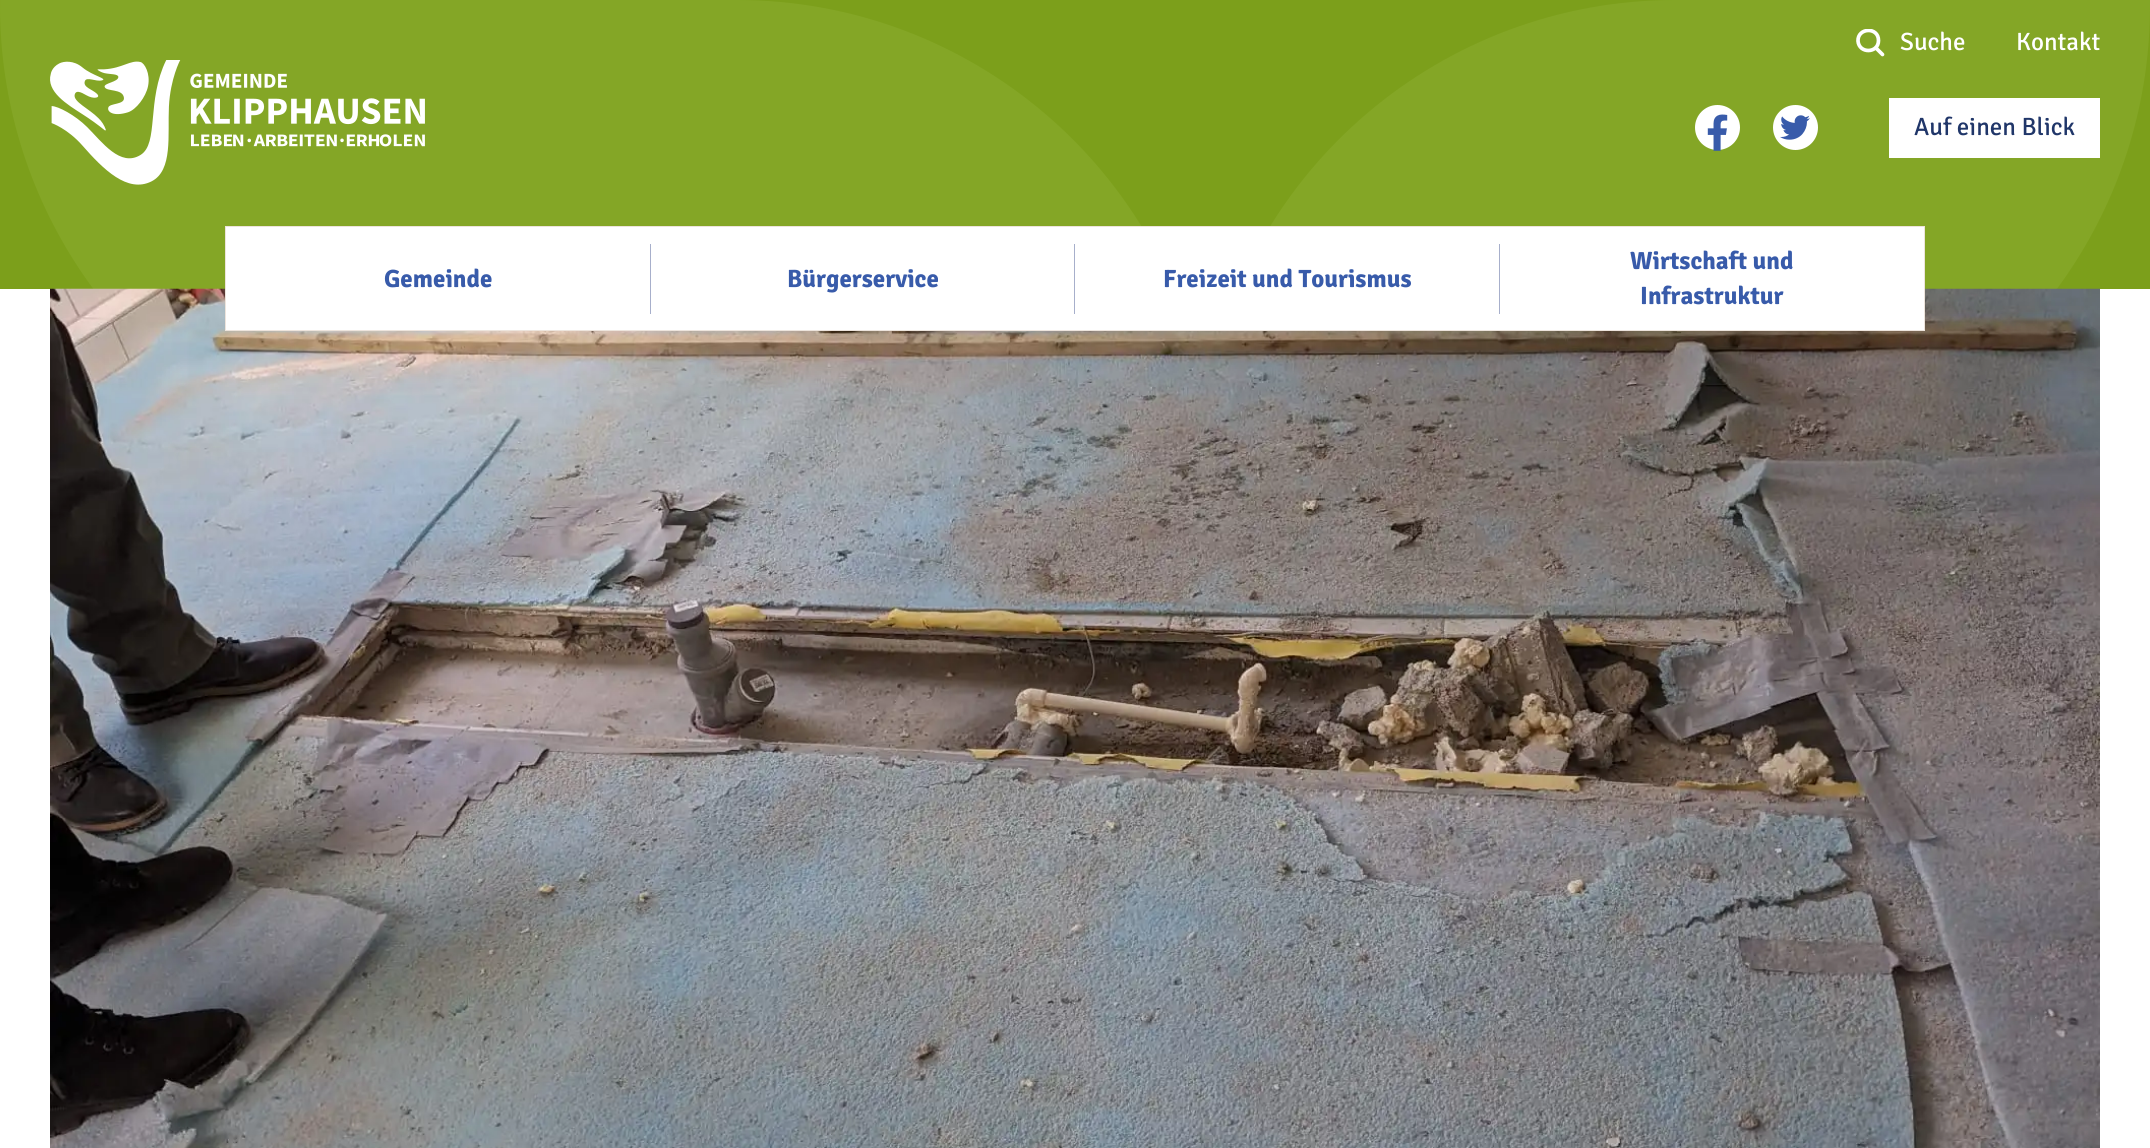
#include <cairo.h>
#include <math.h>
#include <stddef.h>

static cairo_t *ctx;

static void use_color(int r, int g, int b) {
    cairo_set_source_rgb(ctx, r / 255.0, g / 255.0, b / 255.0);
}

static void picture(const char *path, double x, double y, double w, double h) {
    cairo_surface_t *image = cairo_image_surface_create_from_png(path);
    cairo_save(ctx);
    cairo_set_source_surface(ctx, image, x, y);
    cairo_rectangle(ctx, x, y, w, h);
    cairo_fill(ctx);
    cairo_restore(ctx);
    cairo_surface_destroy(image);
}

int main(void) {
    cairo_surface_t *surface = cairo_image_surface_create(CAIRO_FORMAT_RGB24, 2150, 1148);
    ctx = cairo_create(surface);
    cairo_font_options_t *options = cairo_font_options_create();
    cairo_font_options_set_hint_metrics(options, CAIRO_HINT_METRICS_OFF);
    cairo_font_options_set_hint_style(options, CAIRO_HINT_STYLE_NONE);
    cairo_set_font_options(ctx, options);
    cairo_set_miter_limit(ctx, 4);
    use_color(255, 255, 255);
    cairo_paint(ctx);
    use_color(124, 159, 27);
    cairo_rectangle(ctx, 0, 0, 2150, 289);
    cairo_fill(ctx);
    picture("img1.png", 0, 0, 2150, 289);
    cairo_save(ctx);
    cairo_rectangle(ctx, 1856, 29, 29, 29);
    cairo_clip(ctx);
    cairo_new_path(ctx);
    cairo_move_to(ctx, 1878.5, 40.5);
    cairo_curve_to(ctx, 1878.5, 53.5, 1859, 54, 1858, 41);
    cairo_curve_to(ctx, 1857.5, 27.5, 1878.5, 26.5, 1878.5, 40.5);
    cairo_close_path(ctx);
    use_color(255, 255, 255);
    cairo_set_line_width(ctx, 3.7);
    cairo_set_line_cap(ctx, CAIRO_LINE_CAP_ROUND);
    cairo_set_line_join(ctx, CAIRO_LINE_JOIN_ROUND);
    cairo_stroke(ctx);
    cairo_restore(ctx);
    cairo_new_path(ctx);
    cairo_move_to(ctx, 1882.5, 54.5);
    cairo_line_to(ctx, 1876, 48);
    use_color(255, 255, 255);
    cairo_set_line_width(ctx, 3.7);
    cairo_set_line_cap(ctx, CAIRO_LINE_CAP_ROUND);
    cairo_set_line_join(ctx, CAIRO_LINE_JOIN_ROUND);
    cairo_stroke(ctx);
    cairo_select_font_face(ctx, "Signika Light", CAIRO_FONT_SLANT_NORMAL, CAIRO_FONT_WEIGHT_NORMAL);
    cairo_set_font_size(ctx, 25);
    cairo_move_to(ctx, 1900, 50);
    cairo_show_text(ctx, "Suche");
    cairo_move_to(ctx, 2016, 50);
    cairo_show_text(ctx, "Kontakt");
    picture("img2.png", 50, 60, 375, 125);
    cairo_arc(ctx, 1717.5, 127.5, 22.5, 0, 2 * M_PI);
    cairo_fill(ctx);
    picture("img3.png", 1707, 114, 21, 37);
    cairo_arc(ctx, 1795.5, 127.5, 22.5, 0, 2 * M_PI);
    cairo_fill(ctx);
    picture("img4.png", 1780, 115, 30, 25);
    cairo_rectangle(ctx, 1889, 98, 211, 60);
    cairo_fill(ctx);
    use_color(32, 54, 105);
    cairo_move_to(ctx, 1914, 135);
    cairo_show_text(ctx, "Auf einen Blick");
    picture("img5.png", 50, 288, 2050, 860);
    use_color(255, 255, 255);
    cairo_rectangle(ctx, 225.5, 226.5, 1699, 104);
    cairo_fill_preserve(ctx);
    use_color(237, 228, 220);
    cairo_set_line_width(ctx, 1);
    cairo_set_line_cap(ctx, CAIRO_LINE_CAP_BUTT);
    cairo_set_line_join(ctx, CAIRO_LINE_JOIN_MITER);
    cairo_stroke(ctx);
    cairo_select_font_face(ctx, "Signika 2 Light", CAIRO_FONT_SLANT_NORMAL, CAIRO_FONT_WEIGHT_NORMAL);
    use_color(56, 91, 170);
    cairo_move_to(ctx, 384, 287);
    cairo_show_text(ctx, "Gemeinde");
    use_color(167, 175, 203);
    cairo_rectangle(ctx, 650, 244, 1, 70);
    cairo_fill(ctx);
    use_color(56, 91, 170);
    cairo_move_to(ctx, 787, 287);
    cairo_show_text(ctx, "Bürgerservice");
    use_color(167, 175, 203);
    cairo_rectangle(ctx, 1074, 244, 1, 70);
    cairo_fill(ctx);
    use_color(56, 91, 170);
    cairo_move_to(ctx, 1163, 287);
    cairo_show_text(ctx, "Freizeit und Tourismus");
    use_color(167, 175, 203);
    cairo_rectangle(ctx, 1499, 244, 1, 70);
    cairo_fill(ctx);
    use_color(56, 91, 170);
    cairo_move_to(ctx, 1630, 269);
    cairo_show_text(ctx, "Wirtschaft und");
    cairo_move_to(ctx, 1640, 304);
    cairo_show_text(ctx, "Infrastruktur");
    cairo_surface_write_to_png(surface, "result.png");
    cairo_font_options_destroy(options);
    cairo_destroy(ctx);
    cairo_surface_destroy(surface);
    return 0;
}
